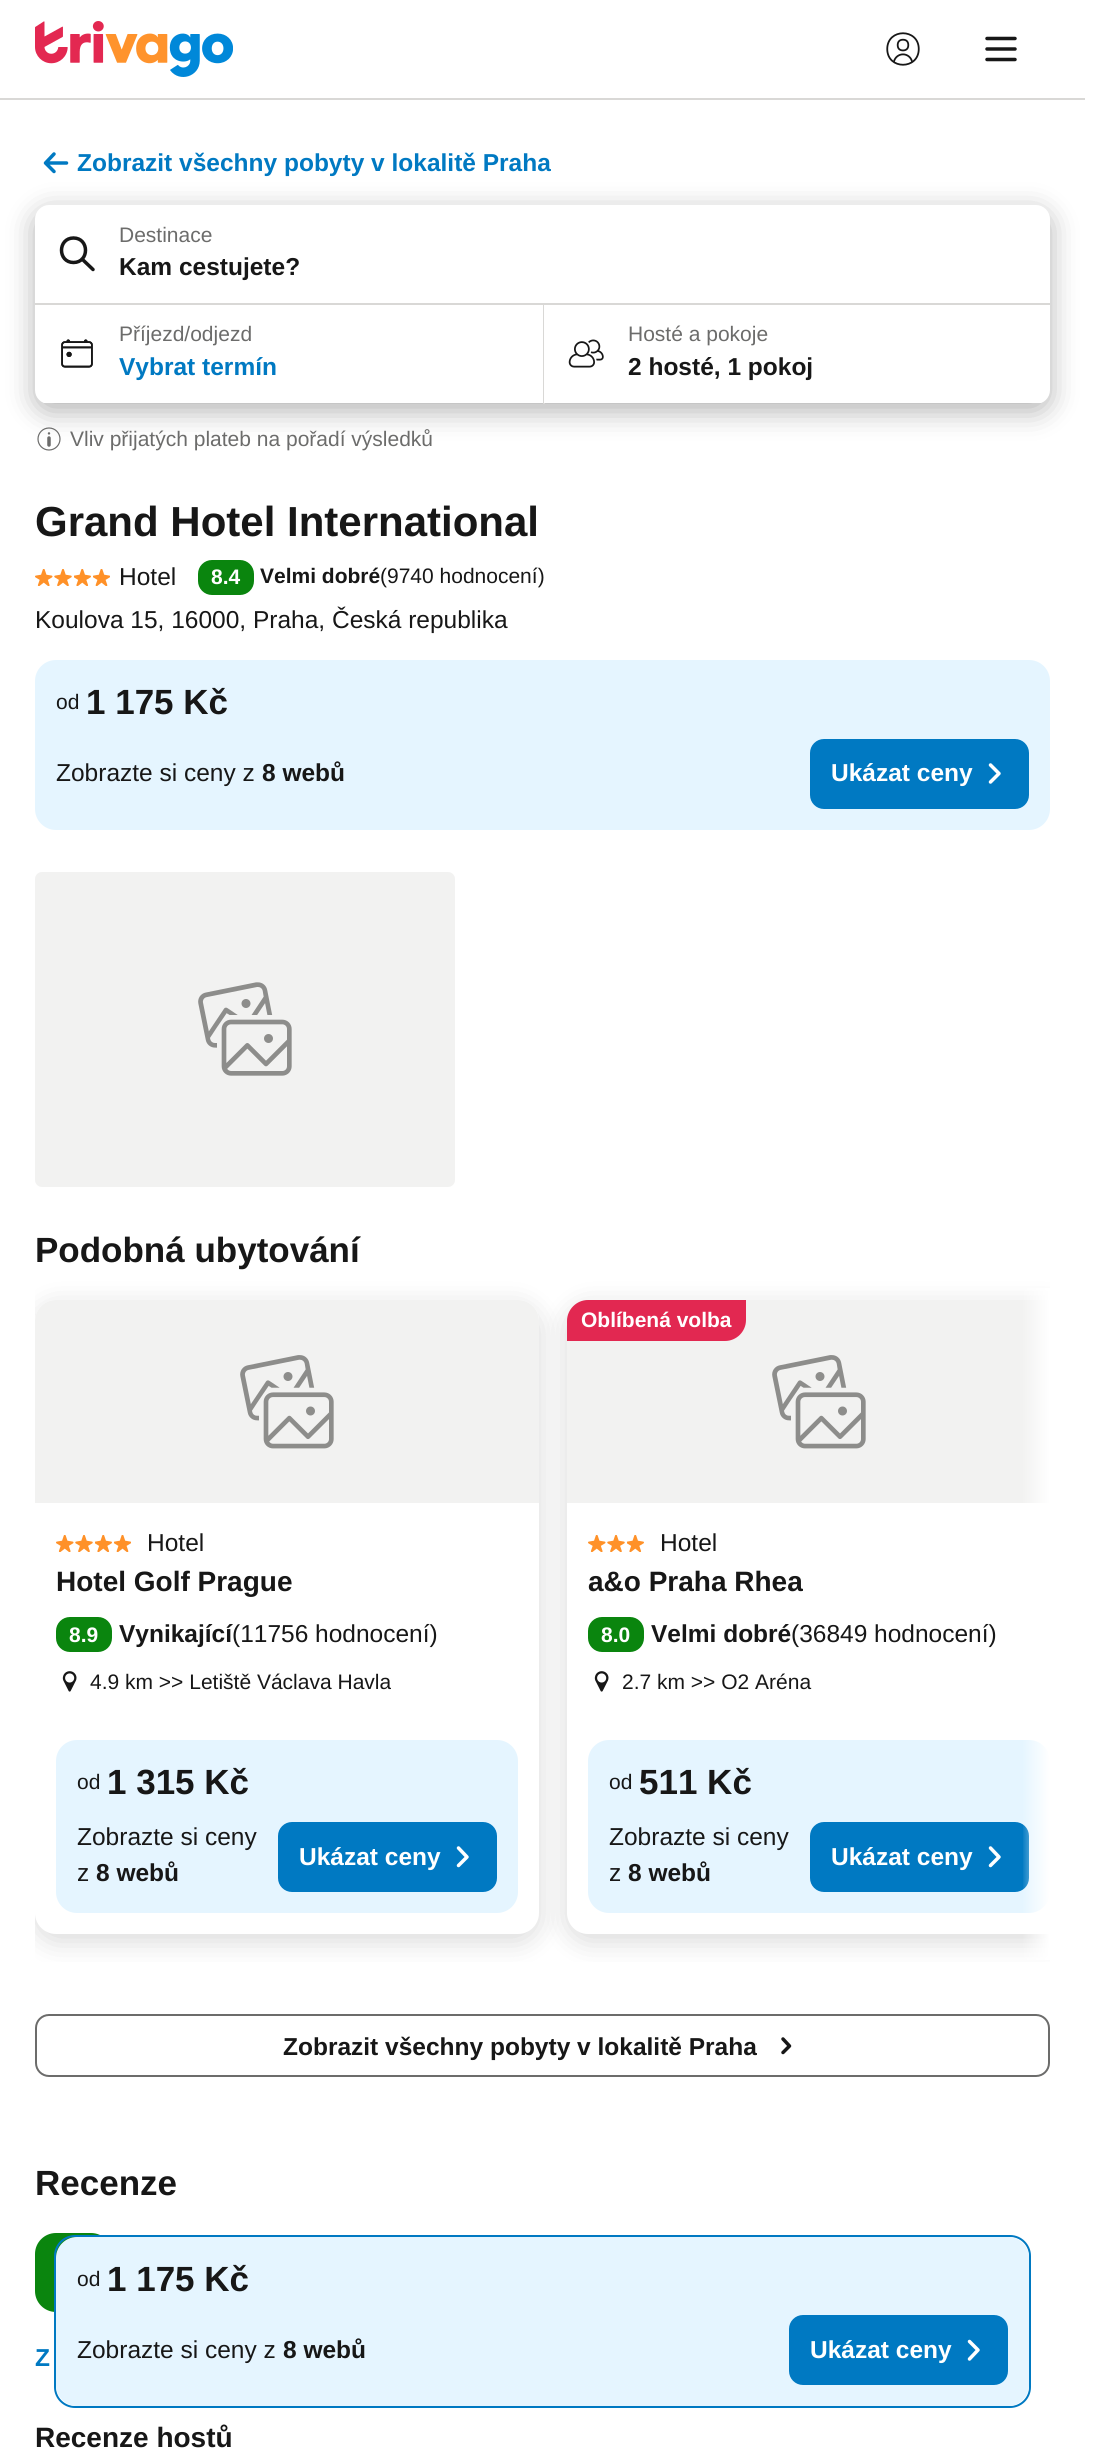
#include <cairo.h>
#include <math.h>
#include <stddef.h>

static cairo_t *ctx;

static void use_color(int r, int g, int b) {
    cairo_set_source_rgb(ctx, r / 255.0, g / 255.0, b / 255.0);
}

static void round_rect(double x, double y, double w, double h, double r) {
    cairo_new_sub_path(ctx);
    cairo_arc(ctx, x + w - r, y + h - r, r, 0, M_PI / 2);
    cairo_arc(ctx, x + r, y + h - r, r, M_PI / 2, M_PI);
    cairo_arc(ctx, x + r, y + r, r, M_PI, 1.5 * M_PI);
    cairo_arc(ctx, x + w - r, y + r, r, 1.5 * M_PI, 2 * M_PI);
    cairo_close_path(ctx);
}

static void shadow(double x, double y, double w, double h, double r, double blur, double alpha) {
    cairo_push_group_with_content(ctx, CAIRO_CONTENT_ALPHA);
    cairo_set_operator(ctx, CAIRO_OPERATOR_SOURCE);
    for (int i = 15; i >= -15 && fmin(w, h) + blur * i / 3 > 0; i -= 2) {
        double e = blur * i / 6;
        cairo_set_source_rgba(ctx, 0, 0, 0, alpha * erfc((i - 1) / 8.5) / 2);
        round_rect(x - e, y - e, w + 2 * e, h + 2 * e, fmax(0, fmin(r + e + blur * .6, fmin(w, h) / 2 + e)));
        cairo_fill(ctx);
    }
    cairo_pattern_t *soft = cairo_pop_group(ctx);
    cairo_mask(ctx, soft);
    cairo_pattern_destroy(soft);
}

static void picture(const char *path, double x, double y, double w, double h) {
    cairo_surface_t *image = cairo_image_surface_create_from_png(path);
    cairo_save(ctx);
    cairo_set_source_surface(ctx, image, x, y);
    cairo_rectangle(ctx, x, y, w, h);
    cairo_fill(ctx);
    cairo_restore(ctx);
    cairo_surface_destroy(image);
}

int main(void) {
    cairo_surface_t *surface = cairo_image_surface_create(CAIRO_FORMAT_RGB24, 1110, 2463);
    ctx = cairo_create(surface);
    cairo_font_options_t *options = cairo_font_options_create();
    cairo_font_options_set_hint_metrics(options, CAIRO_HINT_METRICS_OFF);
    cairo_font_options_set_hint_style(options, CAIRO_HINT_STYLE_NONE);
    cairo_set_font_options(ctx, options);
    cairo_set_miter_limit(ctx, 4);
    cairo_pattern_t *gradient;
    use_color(255, 255, 255);
    cairo_paint(ctx);
    picture("img1.png", 35, 21, 198, 56);
    picture("img2.png", 886, 32, 34, 34);
    cairo_new_path(ctx);
    cairo_move_to(ctx, 987, 38.5);
    cairo_line_to(ctx, 1015, 38.5);
    cairo_move_to(ctx, 987, 49);
    cairo_line_to(ctx, 1015, 49);
    cairo_move_to(ctx, 987, 59.5);
    cairo_line_to(ctx, 1015, 59.5);
    use_color(23, 23, 23);
    cairo_set_line_width(ctx, 3.5);
    cairo_set_line_cap(ctx, CAIRO_LINE_CAP_ROUND);
    cairo_stroke(ctx);
    use_color(217, 216, 214);
    cairo_rectangle(ctx, 0, 98, 1085, 2);
    cairo_fill(ctx);
    cairo_new_path(ctx);
    cairo_move_to(ctx, 54, 171.5);
    cairo_line_to(ctx, 45.5, 163);
    cairo_move_to(ctx, 54, 154);
    cairo_line_to(ctx, 45.5, 163);
    cairo_move_to(ctx, 66.5, 163);
    cairo_line_to(ctx, 45.5, 163);
    use_color(0, 121, 194);
    cairo_stroke(ctx);
    cairo_select_font_face(ctx, "Liberation Sans", CAIRO_FONT_SLANT_NORMAL, CAIRO_FONT_WEIGHT_BOLD);
    cairo_set_font_size(ctx, 24.5);
    cairo_move_to(ctx, 77, 171);
    cairo_show_text(ctx, "Zobrazit všechny pobyty v lokalitě Praha");
    use_color(0, 0, 0);
    shadow(35, 212, 1015, 199, 14, 14, 0.3);
    use_color(217, 216, 214);
    cairo_rectangle(ctx, 35, 303, 1015, 2);
    cairo_fill(ctx);
    use_color(255, 255, 255);
    cairo_new_path(ctx);
    cairo_move_to(ctx, 49, 205);
    cairo_line_to(ctx, 1036, 205);
    cairo_curve_to(ctx, 1043.5, 205, 1050, 211.5, 1050, 219);
    cairo_line_to(ctx, 1050, 303);
    cairo_line_to(ctx, 35, 303);
    cairo_line_to(ctx, 35, 219);
    cairo_curve_to(ctx, 35, 211.5, 41.5, 205, 49, 205);
    cairo_close_path(ctx);
    cairo_fill(ctx);
    cairo_new_path(ctx);
    cairo_move_to(ctx, 73.5, 238);
    cairo_curve_to(ctx, 57.5, 238, 57.5, 262.5, 73.5, 262.5);
    cairo_curve_to(ctx, 89.5, 262.5, 89.5, 238, 73.5, 238);
    cairo_close_path(ctx);
    cairo_move_to(ctx, 93, 269.5);
    cairo_line_to(ctx, 82, 259);
    use_color(23, 23, 23);
    cairo_stroke(ctx);
    cairo_select_font_face(ctx, "Liberation Sans", CAIRO_FONT_SLANT_NORMAL, CAIRO_FONT_WEIGHT_NORMAL);
    cairo_set_font_size(ctx, 21);
    use_color(108, 108, 107);
    cairo_move_to(ctx, 119, 242);
    cairo_show_text(ctx, "Destinace");
    cairo_select_font_face(ctx, "Liberation Sans", CAIRO_FONT_SLANT_NORMAL, CAIRO_FONT_WEIGHT_BOLD);
    cairo_set_font_size(ctx, 24.5);
    use_color(23, 23, 23);
    cairo_move_to(ctx, 119, 275);
    cairo_show_text(ctx, "Kam cestujete?");
    cairo_save(ctx);
    round_rect(35, 205, 1015, 199, 14);
    cairo_clip(ctx);
    use_color(255, 255, 255);
    cairo_rectangle(ctx, 35, 305, 508, 98);
    cairo_fill(ctx);
    cairo_restore(ctx);
    picture("img3.png", 61, 339, 32, 29);
    cairo_select_font_face(ctx, "Liberation Sans", CAIRO_FONT_SLANT_NORMAL, CAIRO_FONT_WEIGHT_NORMAL);
    cairo_set_font_size(ctx, 21);
    use_color(108, 108, 107);
    cairo_move_to(ctx, 119, 341);
    cairo_show_text(ctx, "Příjezd/odjezd");
    cairo_select_font_face(ctx, "Liberation Sans", CAIRO_FONT_SLANT_NORMAL, CAIRO_FONT_WEIGHT_BOLD);
    cairo_set_font_size(ctx, 24.5);
    use_color(0, 121, 194);
    cairo_move_to(ctx, 119, 375);
    cairo_show_text(ctx, "Vybrat termín");
    use_color(217, 216, 214);
    cairo_rectangle(ctx, 543, 305, 2, 99);
    cairo_fill(ctx);
    cairo_save(ctx);
    round_rect(35, 205, 1015, 199, 14);
    cairo_clip(ctx);
    use_color(255, 255, 255);
    cairo_rectangle(ctx, 544, 305, 506, 98);
    cairo_fill(ctx);
    cairo_restore(ctx);
    picture("img4.png", 568, 339, 36, 29);
    cairo_select_font_face(ctx, "Liberation Sans", CAIRO_FONT_SLANT_NORMAL, CAIRO_FONT_WEIGHT_NORMAL);
    cairo_set_font_size(ctx, 21);
    use_color(108, 108, 107);
    cairo_move_to(ctx, 628, 341);
    cairo_show_text(ctx, "Hosté a pokoje");
    cairo_select_font_face(ctx, "Liberation Sans", CAIRO_FONT_SLANT_NORMAL, CAIRO_FONT_WEIGHT_BOLD);
    cairo_set_font_size(ctx, 24.5);
    use_color(23, 23, 23);
    cairo_move_to(ctx, 628, 375);
    cairo_show_text(ctx, "2 hosté, 1 pokoj");
    cairo_new_path(ctx);
    cairo_arc(ctx, 49, 439, 11, 0, 2 * M_PI);
    use_color(108, 108, 107);
    cairo_set_line_width(ctx, 1.2);
    cairo_set_line_cap(ctx, CAIRO_LINE_CAP_BUTT);
    cairo_stroke(ctx);
    cairo_new_path(ctx);
    cairo_move_to(ctx, 49, 438);
    cairo_line_to(ctx, 49, 445);
    cairo_set_line_width(ctx, 3.5);
    cairo_set_line_cap(ctx, CAIRO_LINE_CAP_ROUND);
    cairo_stroke(ctx);
    cairo_arc(ctx, 49, 433.4, 1.2, 0, 2 * M_PI);
    cairo_fill(ctx);
    cairo_select_font_face(ctx, "Liberation Sans", CAIRO_FONT_SLANT_NORMAL, CAIRO_FONT_WEIGHT_NORMAL);
    cairo_set_font_size(ctx, 21);
    cairo_move_to(ctx, 70, 446);
    cairo_show_text(ctx, "Vliv přijatých plateb na pořadí výsledků");
    cairo_select_font_face(ctx, "Liberation Sans", CAIRO_FONT_SLANT_NORMAL, CAIRO_FONT_WEIGHT_BOLD);
    cairo_set_font_size(ctx, 42);
    use_color(23, 23, 23);
    cairo_move_to(ctx, 35, 536);
    cairo_show_text(ctx, "Grand Hotel International");
    picture("img5.png", 35, 569, 18, 17);
    picture("img6.png", 54, 569, 18, 17);
    picture("img7.png", 74, 569, 17, 17);
    picture("img8.png", 93, 569, 17, 17);
    cairo_select_font_face(ctx, "Liberation Sans", CAIRO_FONT_SLANT_NORMAL, CAIRO_FONT_WEIGHT_NORMAL);
    cairo_set_font_size(ctx, 24.5);
    cairo_move_to(ctx, 119, 585);
    cairo_show_text(ctx, "Hotel");
    use_color(10, 133, 14);
    round_rect(198, 560, 56, 35, 14);
    cairo_fill(ctx);
    cairo_select_font_face(ctx, "Liberation Sans", CAIRO_FONT_SLANT_NORMAL, CAIRO_FONT_WEIGHT_BOLD);
    cairo_set_font_size(ctx, 21);
    use_color(255, 255, 255);
    cairo_move_to(ctx, 211, 584);
    cairo_show_text(ctx, "8.4");
    use_color(23, 23, 23);
    cairo_move_to(ctx, 260, 583);
    cairo_show_text(ctx, "Velmi dobré");
    cairo_select_font_face(ctx, "Liberation Sans", CAIRO_FONT_SLANT_NORMAL, CAIRO_FONT_WEIGHT_NORMAL);
    cairo_move_to(ctx, 380, 583);
    cairo_show_text(ctx, "(9740 hodnocení)");
    cairo_set_font_size(ctx, 24.5);
    cairo_move_to(ctx, 35, 628);
    cairo_show_text(ctx, "Koulova 15, 16000, Praha, Česká republika");
    use_color(229, 245, 255);
    round_rect(35, 660, 1015, 170, 21);
    cairo_fill(ctx);
    cairo_set_font_size(ctx, 21);
    use_color(23, 23, 23);
    cairo_move_to(ctx, 56, 709);
    cairo_show_text(ctx, "od");
    cairo_select_font_face(ctx, "Liberation Sans", CAIRO_FONT_SLANT_NORMAL, CAIRO_FONT_WEIGHT_BOLD);
    cairo_set_font_size(ctx, 35);
    cairo_move_to(ctx, 86, 714);
    cairo_show_text(ctx, "1 175 Kč");
    cairo_select_font_face(ctx, "Liberation Sans", CAIRO_FONT_SLANT_NORMAL, CAIRO_FONT_WEIGHT_NORMAL);
    cairo_set_font_size(ctx, 24.5);
    cairo_move_to(ctx, 56, 781);
    cairo_show_text(ctx, "Zobrazte si ceny z");
    cairo_select_font_face(ctx, "Liberation Sans", CAIRO_FONT_SLANT_NORMAL, CAIRO_FONT_WEIGHT_BOLD);
    cairo_move_to(ctx, 262, 781);
    cairo_show_text(ctx, "8 webů");
    use_color(0, 121, 194);
    round_rect(810, 739, 219, 70, 14);
    cairo_fill(ctx);
    use_color(255, 255, 255);
    cairo_move_to(ctx, 831, 781);
    cairo_show_text(ctx, "Ukázat ceny");
    cairo_new_path(ctx);
    cairo_move_to(ctx, 990.5, 782);
    cairo_line_to(ctx, 999, 773.5);
    cairo_move_to(ctx, 990.5, 765);
    cairo_line_to(ctx, 999, 773.5);
    cairo_stroke(ctx);
    use_color(10, 133, 14);
    round_rect(35, 2233, 77, 79, 21);
    cairo_fill(ctx);
    round_rect(55, 2236, 975, 171, 20);
    use_color(0, 121, 194);
    cairo_set_line_width(ctx, 2);
    cairo_set_line_cap(ctx, CAIRO_LINE_CAP_BUTT);
    cairo_stroke(ctx);
    use_color(229, 245, 255);
    round_rect(56, 2237, 973, 169, 21);
    cairo_fill(ctx);
    cairo_select_font_face(ctx, "Liberation Sans", CAIRO_FONT_SLANT_NORMAL, CAIRO_FONT_WEIGHT_NORMAL);
    cairo_set_font_size(ctx, 21);
    use_color(23, 23, 23);
    cairo_move_to(ctx, 77, 2286);
    cairo_show_text(ctx, "od");
    cairo_select_font_face(ctx, "Liberation Sans", CAIRO_FONT_SLANT_NORMAL, CAIRO_FONT_WEIGHT_BOLD);
    cairo_set_font_size(ctx, 35);
    cairo_move_to(ctx, 107, 2291);
    cairo_show_text(ctx, "1 175 Kč");
    cairo_select_font_face(ctx, "Liberation Sans", CAIRO_FONT_SLANT_NORMAL, CAIRO_FONT_WEIGHT_NORMAL);
    cairo_set_font_size(ctx, 24.5);
    cairo_move_to(ctx, 77, 2358);
    cairo_show_text(ctx, "Zobrazte si ceny z");
    cairo_select_font_face(ctx, "Liberation Sans", CAIRO_FONT_SLANT_NORMAL, CAIRO_FONT_WEIGHT_BOLD);
    cairo_move_to(ctx, 283, 2358);
    cairo_show_text(ctx, "8 webů");
    use_color(0, 121, 194);
    round_rect(789, 2315, 219, 70, 14);
    cairo_fill(ctx);
    use_color(255, 255, 255);
    cairo_move_to(ctx, 810, 2358);
    cairo_show_text(ctx, "Ukázat ceny");
    cairo_new_path(ctx);
    cairo_move_to(ctx, 969.5, 2359);
    cairo_line_to(ctx, 978, 2350);
    cairo_move_to(ctx, 969.5, 2341.5);
    cairo_line_to(ctx, 978, 2350);
    cairo_set_line_width(ctx, 3.5);
    cairo_set_line_cap(ctx, CAIRO_LINE_CAP_ROUND);
    cairo_stroke(ctx);
    use_color(242, 242, 241);
    round_rect(35, 872, 420, 315, 7);
    cairo_fill(ctx);
    picture("img9.png", 198, 982, 94, 94);
    cairo_set_font_size(ctx, 35);
    use_color(23, 23, 23);
    cairo_move_to(ctx, 35, 1262);
    cairo_show_text(ctx, "Podobná ubytování");
    cairo_save(ctx);
    cairo_rectangle(ctx, 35, 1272, 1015, 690);
    cairo_clip(ctx);
    use_color(0, 0, 0);
    shadow(35, 1307, 504, 634, 21, 14, 0.15);
    cairo_restore(ctx);
    use_color(255, 255, 255);
    round_rect(35, 1300, 504, 634, 21);
    cairo_fill(ctx);
    picture("img10.png", 35, 1300, 504, 203);
    picture("img5.png", 56, 1535, 18, 17);
    picture("img6.png", 75, 1535, 18, 17);
    picture("img7.png", 95, 1535, 17, 17);
    picture("img8.png", 114, 1535, 17, 17);
    cairo_select_font_face(ctx, "Liberation Sans", CAIRO_FONT_SLANT_NORMAL, CAIRO_FONT_WEIGHT_NORMAL);
    cairo_set_font_size(ctx, 24.5);
    use_color(23, 23, 23);
    cairo_move_to(ctx, 147, 1551);
    cairo_show_text(ctx, "Hotel");
    cairo_select_font_face(ctx, "Liberation Sans", CAIRO_FONT_SLANT_NORMAL, CAIRO_FONT_WEIGHT_BOLD);
    cairo_set_font_size(ctx, 28);
    cairo_move_to(ctx, 56, 1591);
    cairo_show_text(ctx, "Hotel Golf Prague");
    use_color(10, 133, 14);
    round_rect(56, 1617, 56, 35, 14);
    cairo_fill(ctx);
    cairo_set_font_size(ctx, 21);
    use_color(255, 255, 255);
    cairo_move_to(ctx, 69, 1642);
    cairo_show_text(ctx, "8.9");
    cairo_set_font_size(ctx, 24.5);
    use_color(23, 23, 23);
    cairo_move_to(ctx, 119, 1642);
    cairo_show_text(ctx, "Vynikající");
    cairo_select_font_face(ctx, "Liberation Sans", CAIRO_FONT_SLANT_NORMAL, CAIRO_FONT_WEIGHT_NORMAL);
    cairo_move_to(ctx, 232, 1642);
    cairo_show_text(ctx, "(11756 hodnocení)");
    picture("img11.png", 62, 1671, 15, 21);
    cairo_set_font_size(ctx, 21);
    cairo_move_to(ctx, 90, 1689);
    cairo_show_text(ctx, "4.9 km >> Letiště Václava Havla");
    use_color(229, 245, 255);
    round_rect(56, 1740, 462, 173, 21);
    cairo_fill(ctx);
    use_color(23, 23, 23);
    cairo_move_to(ctx, 77, 1789);
    cairo_show_text(ctx, "od");
    cairo_select_font_face(ctx, "Liberation Sans", CAIRO_FONT_SLANT_NORMAL, CAIRO_FONT_WEIGHT_BOLD);
    cairo_set_font_size(ctx, 35);
    cairo_move_to(ctx, 107, 1794);
    cairo_show_text(ctx, "1 315 Kč");
    cairo_select_font_face(ctx, "Liberation Sans", CAIRO_FONT_SLANT_NORMAL, CAIRO_FONT_WEIGHT_NORMAL);
    cairo_set_font_size(ctx, 24.5);
    cairo_move_to(ctx, 77, 1845);
    cairo_show_text(ctx, "Zobrazte si ceny");
    cairo_move_to(ctx, 77, 1881);
    cairo_show_text(ctx, "z");
    cairo_select_font_face(ctx, "Liberation Sans", CAIRO_FONT_SLANT_NORMAL, CAIRO_FONT_WEIGHT_BOLD);
    cairo_move_to(ctx, 96, 1881);
    cairo_show_text(ctx, "8 webů");
    use_color(0, 121, 194);
    round_rect(278, 1822, 219, 70, 14);
    cairo_fill(ctx);
    use_color(255, 255, 255);
    cairo_move_to(ctx, 299, 1865);
    cairo_show_text(ctx, "Ukázat ceny");
    cairo_new_path(ctx);
    cairo_move_to(ctx, 458.5, 1865.5);
    cairo_line_to(ctx, 467, 1857);
    cairo_move_to(ctx, 458.5, 1848);
    cairo_line_to(ctx, 467, 1857);
    cairo_stroke(ctx);
    cairo_save(ctx);
    cairo_rectangle(ctx, 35, 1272, 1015, 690);
    cairo_clip(ctx);
    use_color(0, 0, 0);
    shadow(567, 1307, 504, 634, 21, 14, 0.15);
    cairo_restore(ctx);
    cairo_new_path(ctx);
    cairo_move_to(ctx, 588, 1300);
    cairo_line_to(ctx, 1050, 1300);
    cairo_line_to(ctx, 1050, 1934);
    cairo_line_to(ctx, 588, 1934);
    cairo_curve_to(ctx, 576.5, 1934, 567, 1924.5, 567, 1913);
    cairo_line_to(ctx, 567, 1321);
    cairo_curve_to(ctx, 567, 1309.5, 576.5, 1300, 588, 1300);
    cairo_close_path(ctx);
    cairo_fill(ctx);
    picture("img12.png", 567, 1300, 483, 203);
    use_color(226, 40, 81);
    cairo_new_path(ctx);
    cairo_move_to(ctx, 588, 1300);
    cairo_line_to(ctx, 746, 1300);
    cairo_line_to(ctx, 746, 1320);
    cairo_curve_to(ctx, 746, 1331.5, 736.5, 1341, 725, 1341);
    cairo_line_to(ctx, 567, 1341);
    cairo_line_to(ctx, 567, 1321);
    cairo_curve_to(ctx, 567, 1309.5, 576.5, 1300, 588, 1300);
    cairo_close_path(ctx);
    cairo_fill(ctx);
    cairo_set_font_size(ctx, 21);
    use_color(255, 255, 255);
    cairo_move_to(ctx, 581, 1327);
    cairo_show_text(ctx, "Oblíbená volba");
    picture("img5.png", 588, 1535, 18, 17);
    picture("img6.png", 607, 1535, 18, 17);
    picture("img7.png", 627, 1535, 17, 17);
    cairo_select_font_face(ctx, "Liberation Sans", CAIRO_FONT_SLANT_NORMAL, CAIRO_FONT_WEIGHT_NORMAL);
    cairo_set_font_size(ctx, 24.5);
    use_color(23, 23, 23);
    cairo_move_to(ctx, 660, 1551);
    cairo_show_text(ctx, "Hotel");
    cairo_select_font_face(ctx, "Liberation Sans", CAIRO_FONT_SLANT_NORMAL, CAIRO_FONT_WEIGHT_BOLD);
    cairo_set_font_size(ctx, 28);
    cairo_move_to(ctx, 588, 1591);
    cairo_show_text(ctx, "a&o Praha Rhea");
    use_color(10, 133, 14);
    round_rect(588, 1617, 56, 35, 14);
    cairo_fill(ctx);
    cairo_set_font_size(ctx, 21);
    use_color(255, 255, 255);
    cairo_move_to(ctx, 601, 1642);
    cairo_show_text(ctx, "8.0");
    cairo_set_font_size(ctx, 24.5);
    use_color(23, 23, 23);
    cairo_move_to(ctx, 651, 1642);
    cairo_show_text(ctx, "Velmi dobré");
    cairo_select_font_face(ctx, "Liberation Sans", CAIRO_FONT_SLANT_NORMAL, CAIRO_FONT_WEIGHT_NORMAL);
    cairo_move_to(ctx, 791, 1642);
    cairo_show_text(ctx, "(36849 hodnocení)");
    picture("img11.png", 594, 1671, 15, 21);
    cairo_set_font_size(ctx, 21);
    cairo_move_to(ctx, 622, 1689);
    cairo_show_text(ctx, "2.7 km >> O2 Aréna");
    use_color(229, 245, 255);
    round_rect(588, 1740, 462, 173, 21);
    cairo_fill(ctx);
    use_color(23, 23, 23);
    cairo_move_to(ctx, 609, 1789);
    cairo_show_text(ctx, "od");
    cairo_select_font_face(ctx, "Liberation Sans", CAIRO_FONT_SLANT_NORMAL, CAIRO_FONT_WEIGHT_BOLD);
    cairo_set_font_size(ctx, 35);
    cairo_move_to(ctx, 639, 1794);
    cairo_show_text(ctx, "511 Kč");
    cairo_select_font_face(ctx, "Liberation Sans", CAIRO_FONT_SLANT_NORMAL, CAIRO_FONT_WEIGHT_NORMAL);
    cairo_set_font_size(ctx, 24.5);
    cairo_move_to(ctx, 609, 1845);
    cairo_show_text(ctx, "Zobrazte si ceny");
    cairo_move_to(ctx, 609, 1881);
    cairo_show_text(ctx, "z");
    cairo_select_font_face(ctx, "Liberation Sans", CAIRO_FONT_SLANT_NORMAL, CAIRO_FONT_WEIGHT_BOLD);
    cairo_move_to(ctx, 628, 1881);
    cairo_show_text(ctx, "8 webů");
    use_color(0, 121, 194);
    round_rect(810, 1822, 219, 70, 14);
    cairo_fill(ctx);
    use_color(255, 255, 255);
    cairo_move_to(ctx, 831, 1865);
    cairo_show_text(ctx, "Ukázat ceny");
    cairo_new_path(ctx);
    cairo_move_to(ctx, 990.5, 1865.5);
    cairo_line_to(ctx, 999, 1857);
    cairo_move_to(ctx, 990.5, 1848);
    cairo_line_to(ctx, 999, 1857);
    cairo_stroke(ctx);
    gradient = cairo_pattern_create_linear(1050, 1617, 1022, 1617);
    cairo_pattern_add_color_stop_rgba(gradient, 0, 1, 1, 1, 1);
    cairo_pattern_add_color_stop_rgba(gradient, 1, 1, 1, 1, 0);
    cairo_set_source(ctx, gradient);
    cairo_pattern_destroy(gradient);
    cairo_rectangle(ctx, 1023, 1288, 27, 672);
    cairo_fill(ctx);
    round_rect(36, 2015, 1013, 61, 13);
    use_color(108, 108, 107);
    cairo_set_line_width(ctx, 2);
    cairo_set_line_cap(ctx, CAIRO_LINE_CAP_BUTT);
    cairo_stroke(ctx);
    use_color(23, 23, 23);
    cairo_move_to(ctx, 283, 2055);
    cairo_show_text(ctx, "Zobrazit všechny pobyty v lokalitě Praha");
    cairo_new_path(ctx);
    cairo_move_to(ctx, 783, 2052.5);
    cairo_line_to(ctx, 789.5, 2046);
    cairo_move_to(ctx, 783, 2039);
    cairo_line_to(ctx, 789.5, 2046);
    cairo_set_line_width(ctx, 3.5);
    cairo_set_line_cap(ctx, CAIRO_LINE_CAP_ROUND);
    cairo_stroke(ctx);
    cairo_set_font_size(ctx, 35);
    cairo_move_to(ctx, 35, 2195);
    cairo_show_text(ctx, "Recenze");
    cairo_set_font_size(ctx, 24.5);
    use_color(0, 121, 194);
    cairo_move_to(ctx, 35, 2366);
    cairo_show_text(ctx, "Z");
    cairo_set_font_size(ctx, 28);
    use_color(23, 23, 23);
    cairo_move_to(ctx, 35, 2447);
    cairo_show_text(ctx, "Recenze hostů");
    cairo_surface_write_to_png(surface, "result.png");
    cairo_font_options_destroy(options);
    cairo_destroy(ctx);
    cairo_surface_destroy(surface);
    return 0;
}
